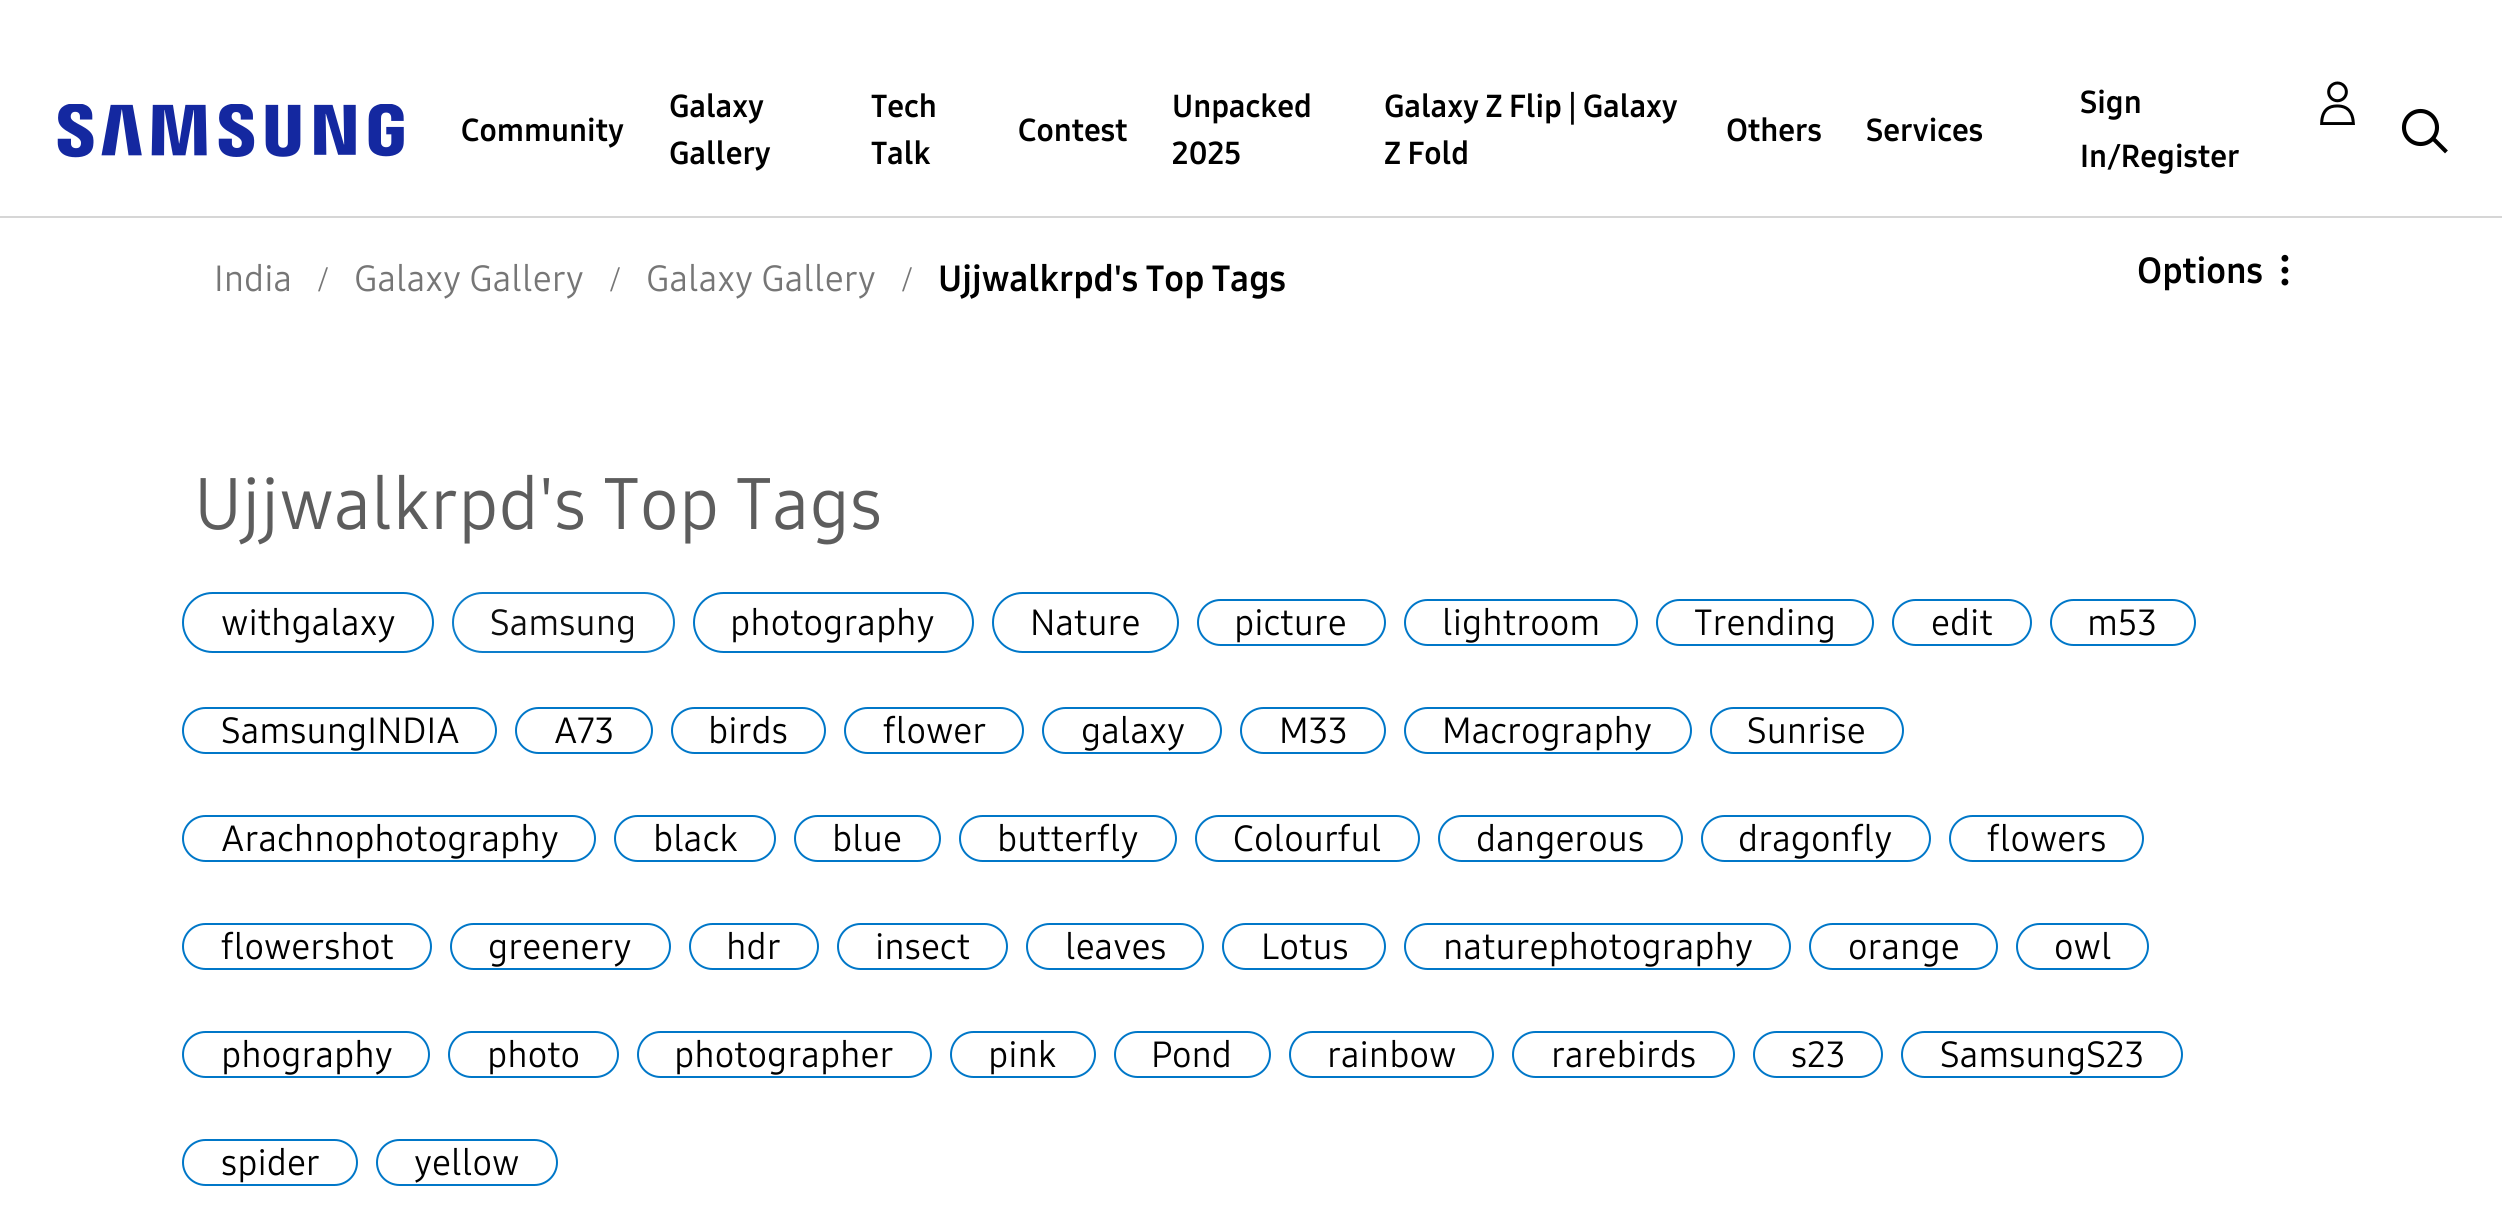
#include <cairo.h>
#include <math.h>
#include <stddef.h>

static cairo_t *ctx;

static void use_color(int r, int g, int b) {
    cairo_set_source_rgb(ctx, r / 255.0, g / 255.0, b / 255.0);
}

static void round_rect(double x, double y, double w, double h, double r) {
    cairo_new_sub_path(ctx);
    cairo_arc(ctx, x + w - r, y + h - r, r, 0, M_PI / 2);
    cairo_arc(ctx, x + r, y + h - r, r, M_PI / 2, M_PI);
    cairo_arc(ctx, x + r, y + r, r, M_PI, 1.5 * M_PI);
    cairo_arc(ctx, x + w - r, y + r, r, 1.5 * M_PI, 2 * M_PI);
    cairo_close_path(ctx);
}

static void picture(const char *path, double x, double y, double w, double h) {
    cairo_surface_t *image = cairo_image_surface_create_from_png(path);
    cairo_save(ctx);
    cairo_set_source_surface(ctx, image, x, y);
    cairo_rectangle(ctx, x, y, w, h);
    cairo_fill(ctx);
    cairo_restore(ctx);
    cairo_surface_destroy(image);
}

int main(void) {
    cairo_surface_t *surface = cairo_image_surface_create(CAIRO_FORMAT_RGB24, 2502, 1223);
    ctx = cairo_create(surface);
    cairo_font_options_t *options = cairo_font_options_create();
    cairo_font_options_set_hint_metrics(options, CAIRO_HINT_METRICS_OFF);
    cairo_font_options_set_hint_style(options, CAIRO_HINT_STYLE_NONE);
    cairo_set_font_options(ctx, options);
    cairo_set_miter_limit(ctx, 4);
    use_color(255, 255, 255);
    cairo_paint(ctx);
    use_color(214, 214, 214);
    cairo_rectangle(ctx, 0, 216, 2502, 2);
    cairo_fill(ctx);
    picture("img1.png", 57, 104, 347, 54);
    cairo_select_font_face(ctx, "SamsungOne", CAIRO_FONT_SLANT_NORMAL, CAIRO_FONT_WEIGHT_BOLD);
    cairo_set_font_size(ctx, 31.5);
    use_color(0, 0, 0);
    cairo_move_to(ctx, 461, 141);
    cairo_show_text(ctx, "Community");
    cairo_move_to(ctx, 669, 117);
    cairo_show_text(ctx, "Galaxy");
    cairo_move_to(ctx, 669, 164);
    cairo_show_text(ctx, "Gallery");
    cairo_move_to(ctx, 871, 117);
    cairo_show_text(ctx, "Tech");
    cairo_move_to(ctx, 871, 164);
    cairo_show_text(ctx, "Talk");
    cairo_move_to(ctx, 1018, 141);
    cairo_show_text(ctx, "Contest");
    cairo_move_to(ctx, 1172, 117);
    cairo_show_text(ctx, "Unpacked");
    cairo_move_to(ctx, 1172, 164);
    cairo_show_text(ctx, "2025");
    cairo_move_to(ctx, 1384, 117);
    cairo_show_text(ctx, "Galaxy Z Flip | Galaxy");
    cairo_move_to(ctx, 1384, 164);
    cairo_show_text(ctx, "Z Fold");
    cairo_move_to(ctx, 1726, 141);
    cairo_show_text(ctx, "Others");
    cairo_move_to(ctx, 1866, 141);
    cairo_show_text(ctx, "Services");
    cairo_move_to(ctx, 2080, 113);
    cairo_show_text(ctx, "Sign");
    picture("img2.png", 2320, 81, 35, 44);
    cairo_move_to(ctx, 2080, 167);
    cairo_show_text(ctx, "In/Register");
    cairo_new_path(ctx);
    cairo_arc(ctx, 2420.5, 127.5, 16.5, 0, 2 * M_PI);
    cairo_set_line_width(ctx, 4.1);
    cairo_stroke(ctx);
    cairo_new_path(ctx);
    cairo_move_to(ctx, 2434.5, 140);
    cairo_line_to(ctx, 2445, 150.5);
    cairo_set_line_cap(ctx, CAIRO_LINE_CAP_SQUARE);
    cairo_stroke(ctx);
    cairo_select_font_face(ctx, "SamsungOne", CAIRO_FONT_SLANT_NORMAL, CAIRO_FONT_WEIGHT_NORMAL);
    cairo_set_font_size(ctx, 36);
    use_color(118, 118, 118);
    cairo_move_to(ctx, 214, 291);
    cairo_show_text(ctx, "India");
    cairo_select_font_face(ctx, "Liberation Serif", CAIRO_FONT_SLANT_NORMAL, CAIRO_FONT_WEIGHT_NORMAL);
    cairo_move_to(ctx, 318, 291);
    cairo_show_text(ctx, "/");
    cairo_select_font_face(ctx, "SamsungOne", CAIRO_FONT_SLANT_NORMAL, CAIRO_FONT_WEIGHT_NORMAL);
    cairo_move_to(ctx, 354, 291);
    cairo_show_text(ctx, "Galaxy Gallery");
    cairo_select_font_face(ctx, "Liberation Serif", CAIRO_FONT_SLANT_NORMAL, CAIRO_FONT_WEIGHT_NORMAL);
    cairo_move_to(ctx, 610, 291);
    cairo_show_text(ctx, "/");
    cairo_select_font_face(ctx, "SamsungOne", CAIRO_FONT_SLANT_NORMAL, CAIRO_FONT_WEIGHT_NORMAL);
    cairo_move_to(ctx, 646, 291);
    cairo_show_text(ctx, "Galaxy Gallery");
    cairo_select_font_face(ctx, "Liberation Serif", CAIRO_FONT_SLANT_NORMAL, CAIRO_FONT_WEIGHT_NORMAL);
    cairo_move_to(ctx, 902, 291);
    cairo_show_text(ctx, "/");
    cairo_select_font_face(ctx, "SamsungOne", CAIRO_FONT_SLANT_NORMAL, CAIRO_FONT_WEIGHT_BOLD);
    use_color(0, 0, 0);
    cairo_move_to(ctx, 938, 291);
    cairo_show_text(ctx, "Ujjwalkrpd's Top Tags");
    cairo_move_to(ctx, 2137, 283);
    cairo_show_text(ctx, "Options");
    picture("img3.png", 2281, 254, 8, 32);
    cairo_select_font_face(ctx, "SamsungOne", CAIRO_FONT_SLANT_NORMAL, CAIRO_FONT_WEIGHT_NORMAL);
    cairo_set_font_size(ctx, 72);
    use_color(93, 93, 93);
    cairo_move_to(ctx, 194, 529);
    cairo_show_text(ctx, "Ujjwalkrpd's Top Tags");
    round_rect(183, 593, 250, 59, 29.5);
    use_color(0, 119, 200);
    cairo_set_line_width(ctx, 2);
    cairo_set_line_cap(ctx, CAIRO_LINE_CAP_BUTT);
    cairo_stroke(ctx);
    cairo_set_font_size(ctx, 36);
    use_color(0, 0, 0);
    cairo_move_to(ctx, 221, 635);
    cairo_show_text(ctx, "withgalaxy");
    round_rect(453, 593, 221, 59, 29.5);
    use_color(13, 126, 203);
    cairo_stroke(ctx);
    use_color(13, 13, 13);
    cairo_move_to(ctx, 490, 635);
    cairo_show_text(ctx, "Samsung");
    round_rect(694, 593, 279, 59, 29.5);
    use_color(0, 119, 200);
    cairo_stroke(ctx);
    use_color(0, 0, 0);
    cairo_move_to(ctx, 730, 635);
    cairo_show_text(ctx, "photography");
    round_rect(993, 593, 185, 59, 29.5);
    use_color(0, 119, 200);
    cairo_stroke(ctx);
    use_color(0, 0, 0);
    cairo_move_to(ctx, 1030, 635);
    cairo_show_text(ctx, "Nature");
    round_rect(1198, 600, 187, 45, 22.5);
    use_color(0, 119, 200);
    cairo_stroke(ctx);
    use_color(0, 0, 0);
    cairo_move_to(ctx, 1234, 635);
    cairo_show_text(ctx, "picture");
    round_rect(1405, 600, 232, 45, 22.5);
    use_color(0, 119, 200);
    cairo_stroke(ctx);
    use_color(0, 0, 0);
    cairo_move_to(ctx, 1442, 635);
    cairo_show_text(ctx, "lightroom");
    round_rect(1657, 600, 216, 45, 22.5);
    use_color(0, 119, 200);
    cairo_stroke(ctx);
    use_color(0, 0, 0);
    cairo_move_to(ctx, 1694, 635);
    cairo_show_text(ctx, "Trending");
    round_rect(1893, 600, 138, 45, 22.5);
    use_color(0, 119, 200);
    cairo_stroke(ctx);
    use_color(0, 0, 0);
    cairo_move_to(ctx, 1931, 635);
    cairo_show_text(ctx, "edit");
    round_rect(2051, 600, 144, 45, 22.5);
    use_color(0, 119, 200);
    cairo_stroke(ctx);
    use_color(0, 0, 0);
    cairo_move_to(ctx, 2087, 635);
    cairo_show_text(ctx, "m53");
    round_rect(183, 708, 313, 45, 22.5);
    use_color(0, 119, 200);
    cairo_stroke(ctx);
    use_color(0, 0, 0);
    cairo_move_to(ctx, 221, 743);
    cairo_show_text(ctx, "SamsungINDIA");
    round_rect(516, 708, 136, 45, 22.5);
    use_color(0, 119, 200);
    cairo_stroke(ctx);
    use_color(0, 0, 0);
    cairo_move_to(ctx, 554, 743);
    cairo_show_text(ctx, "A73");
    round_rect(672, 708, 153, 45, 22.5);
    use_color(0, 119, 200);
    cairo_stroke(ctx);
    use_color(0, 0, 0);
    cairo_move_to(ctx, 708, 743);
    cairo_show_text(ctx, "birds");
    round_rect(845, 708, 178, 45, 22.5);
    use_color(0, 119, 200);
    cairo_stroke(ctx);
    use_color(0, 0, 0);
    cairo_move_to(ctx, 883, 743);
    cairo_show_text(ctx, "flower");
    round_rect(1043, 708, 178, 45, 22.5);
    use_color(0, 119, 200);
    cairo_stroke(ctx);
    use_color(0, 0, 0);
    cairo_move_to(ctx, 1081, 743);
    cairo_show_text(ctx, "galaxy");
    round_rect(1241, 708, 144, 45, 22.5);
    use_color(0, 119, 200);
    cairo_stroke(ctx);
    use_color(0, 0, 0);
    cairo_move_to(ctx, 1279, 743);
    cairo_show_text(ctx, "M33");
    round_rect(1405, 708, 286, 45, 22.5);
    use_color(0, 119, 200);
    cairo_stroke(ctx);
    use_color(0, 0, 0);
    cairo_move_to(ctx, 1442, 743);
    cairo_show_text(ctx, "Macrography");
    round_rect(1711, 708, 192, 45, 22.5);
    use_color(0, 119, 200);
    cairo_stroke(ctx);
    use_color(0, 0, 0);
    cairo_move_to(ctx, 1747, 743);
    cairo_show_text(ctx, "Sunrise");
    round_rect(183, 816, 412, 45, 22.5);
    use_color(0, 119, 200);
    cairo_stroke(ctx);
    use_color(0, 0, 0);
    cairo_move_to(ctx, 221, 851);
    cairo_show_text(ctx, "Arachnophotography");
    round_rect(615, 816, 160, 45, 22.5);
    use_color(0, 119, 200);
    cairo_stroke(ctx);
    use_color(0, 0, 0);
    cairo_move_to(ctx, 653, 851);
    cairo_show_text(ctx, "black");
    round_rect(795, 816, 145, 45, 22.5);
    use_color(0, 119, 200);
    cairo_stroke(ctx);
    use_color(0, 0, 0);
    cairo_move_to(ctx, 832, 851);
    cairo_show_text(ctx, "blue");
    round_rect(960, 816, 216, 45, 22.5);
    use_color(0, 119, 200);
    cairo_stroke(ctx);
    use_color(0, 0, 0);
    cairo_move_to(ctx, 997, 851);
    cairo_show_text(ctx, "butterfly");
    round_rect(1196, 816, 223, 45, 22.5);
    use_color(0, 119, 200);
    cairo_stroke(ctx);
    use_color(0, 0, 0);
    cairo_move_to(ctx, 1233, 851);
    cairo_show_text(ctx, "Colourful");
    round_rect(1439, 816, 243, 45, 22.5);
    use_color(0, 119, 200);
    cairo_stroke(ctx);
    use_color(0, 0, 0);
    cairo_move_to(ctx, 1476, 851);
    cairo_show_text(ctx, "dangerous");
    round_rect(1702, 816, 228, 45, 22.5);
    use_color(0, 119, 200);
    cairo_stroke(ctx);
    use_color(0, 0, 0);
    cairo_move_to(ctx, 1738, 851);
    cairo_show_text(ctx, "dragonfly");
    round_rect(1950, 816, 193, 45, 22.5);
    use_color(0, 119, 200);
    cairo_stroke(ctx);
    use_color(0, 0, 0);
    cairo_move_to(ctx, 1987, 851);
    cairo_show_text(ctx, "flowers");
    round_rect(183, 924, 248, 45, 22.5);
    use_color(0, 119, 200);
    cairo_stroke(ctx);
    use_color(0, 0, 0);
    cairo_move_to(ctx, 221, 959);
    cairo_show_text(ctx, "flowershot");
    round_rect(451, 924, 219, 45, 22.5);
    use_color(0, 119, 200);
    cairo_stroke(ctx);
    use_color(0, 0, 0);
    cairo_move_to(ctx, 488, 959);
    cairo_show_text(ctx, "greenery");
    round_rect(690, 924, 128, 45, 22.5);
    use_color(0, 119, 200);
    cairo_stroke(ctx);
    use_color(0, 0, 0);
    cairo_move_to(ctx, 726, 959);
    cairo_show_text(ctx, "hdr");
    round_rect(838, 924, 169, 45, 22.5);
    use_color(0, 119, 200);
    cairo_stroke(ctx);
    use_color(0, 0, 0);
    cairo_move_to(ctx, 875, 959);
    cairo_show_text(ctx, "insect");
    round_rect(1027, 924, 176, 45, 22.5);
    use_color(0, 119, 200);
    cairo_stroke(ctx);
    use_color(0, 0, 0);
    cairo_move_to(ctx, 1065, 959);
    cairo_show_text(ctx, "leaves");
    round_rect(1223, 924, 162, 45, 22.5);
    use_color(0, 119, 200);
    cairo_stroke(ctx);
    use_color(0, 0, 0);
    cairo_move_to(ctx, 1261, 959);
    cairo_show_text(ctx, "Lotus");
    round_rect(1405, 924, 385, 45, 22.5);
    use_color(0, 119, 200);
    cairo_stroke(ctx);
    use_color(0, 0, 0);
    cairo_move_to(ctx, 1443, 959);
    cairo_show_text(ctx, "naturephotography");
    round_rect(1810, 924, 187, 45, 22.5);
    use_color(0, 119, 200);
    cairo_stroke(ctx);
    use_color(0, 0, 0);
    cairo_move_to(ctx, 1848, 959);
    cairo_show_text(ctx, "orange");
    round_rect(2017, 924, 131, 45, 22.5);
    use_color(0, 119, 200);
    cairo_stroke(ctx);
    use_color(0, 0, 0);
    cairo_move_to(ctx, 2054, 959);
    cairo_show_text(ctx, "owl");
    round_rect(183, 1032, 246, 45, 22.5);
    use_color(0, 119, 200);
    cairo_stroke(ctx);
    use_color(0, 0, 0);
    cairo_move_to(ctx, 221, 1067);
    cairo_show_text(ctx, "phography");
    round_rect(449, 1032, 169, 45, 22.5);
    use_color(0, 119, 200);
    cairo_stroke(ctx);
    use_color(0, 0, 0);
    cairo_move_to(ctx, 487, 1067);
    cairo_show_text(ctx, "photo");
    round_rect(638, 1032, 293, 45, 22.5);
    use_color(0, 119, 200);
    cairo_stroke(ctx);
    use_color(0, 0, 0);
    cairo_move_to(ctx, 674, 1067);
    cairo_show_text(ctx, "photographer");
    round_rect(951, 1032, 144, 45, 22.5);
    use_color(0, 119, 200);
    cairo_stroke(ctx);
    use_color(0, 0, 0);
    cairo_move_to(ctx, 988, 1067);
    cairo_show_text(ctx, "pink");
    round_rect(1115, 1032, 155, 45, 22.5);
    use_color(0, 119, 200);
    cairo_stroke(ctx);
    use_color(0, 0, 0);
    cairo_move_to(ctx, 1151, 1067);
    cairo_show_text(ctx, "Pond");
    round_rect(1290, 1032, 203, 45, 22.5);
    use_color(0, 119, 200);
    cairo_stroke(ctx);
    use_color(0, 0, 0);
    cairo_move_to(ctx, 1327, 1067);
    cairo_show_text(ctx, "rainbow");
    round_rect(1513, 1032, 221, 45, 22.5);
    use_color(0, 119, 200);
    cairo_stroke(ctx);
    use_color(0, 0, 0);
    cairo_move_to(ctx, 1551, 1067);
    cairo_show_text(ctx, "rarebirds");
    round_rect(1754, 1032, 128, 45, 22.5);
    use_color(0, 119, 200);
    cairo_stroke(ctx);
    use_color(0, 0, 0);
    cairo_move_to(ctx, 1791, 1067);
    cairo_show_text(ctx, "s23");
    round_rect(1902, 1032, 280, 45, 22.5);
    use_color(0, 119, 200);
    cairo_stroke(ctx);
    use_color(0, 0, 0);
    cairo_move_to(ctx, 1940, 1067);
    cairo_show_text(ctx, "SamsungS23");
    round_rect(183, 1140, 174, 45, 22.5);
    use_color(0, 119, 200);
    cairo_stroke(ctx);
    use_color(0, 0, 0);
    cairo_move_to(ctx, 221, 1175);
    cairo_show_text(ctx, "spider");
    round_rect(377, 1140, 180, 45, 22.5);
    use_color(0, 119, 200);
    cairo_stroke(ctx);
    use_color(0, 0, 0);
    cairo_move_to(ctx, 414, 1175);
    cairo_show_text(ctx, "yellow");
    cairo_surface_write_to_png(surface, "result.png");
    cairo_font_options_destroy(options);
    cairo_destroy(ctx);
    cairo_surface_destroy(surface);
    return 0;
}
